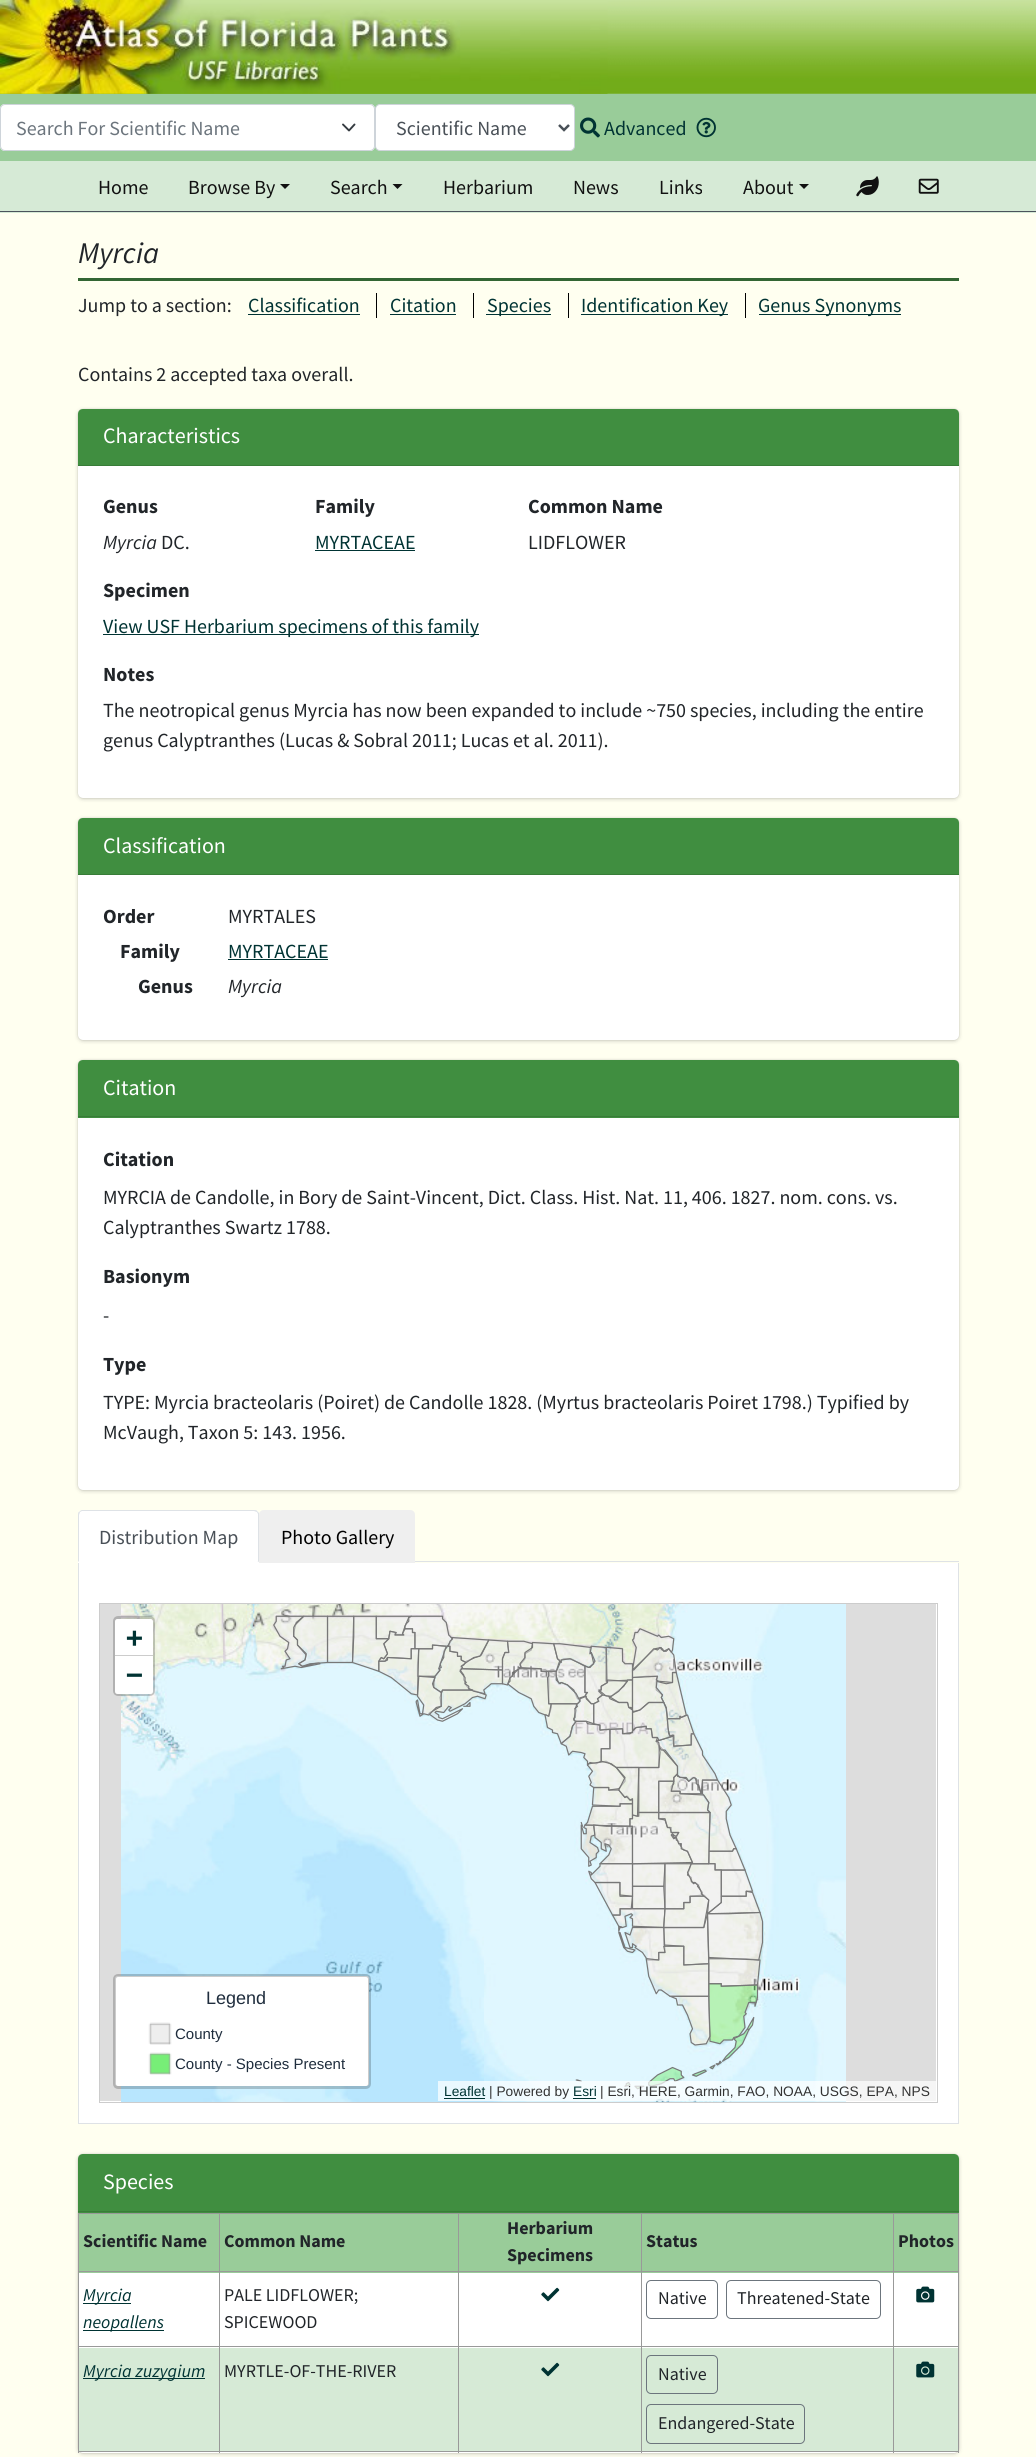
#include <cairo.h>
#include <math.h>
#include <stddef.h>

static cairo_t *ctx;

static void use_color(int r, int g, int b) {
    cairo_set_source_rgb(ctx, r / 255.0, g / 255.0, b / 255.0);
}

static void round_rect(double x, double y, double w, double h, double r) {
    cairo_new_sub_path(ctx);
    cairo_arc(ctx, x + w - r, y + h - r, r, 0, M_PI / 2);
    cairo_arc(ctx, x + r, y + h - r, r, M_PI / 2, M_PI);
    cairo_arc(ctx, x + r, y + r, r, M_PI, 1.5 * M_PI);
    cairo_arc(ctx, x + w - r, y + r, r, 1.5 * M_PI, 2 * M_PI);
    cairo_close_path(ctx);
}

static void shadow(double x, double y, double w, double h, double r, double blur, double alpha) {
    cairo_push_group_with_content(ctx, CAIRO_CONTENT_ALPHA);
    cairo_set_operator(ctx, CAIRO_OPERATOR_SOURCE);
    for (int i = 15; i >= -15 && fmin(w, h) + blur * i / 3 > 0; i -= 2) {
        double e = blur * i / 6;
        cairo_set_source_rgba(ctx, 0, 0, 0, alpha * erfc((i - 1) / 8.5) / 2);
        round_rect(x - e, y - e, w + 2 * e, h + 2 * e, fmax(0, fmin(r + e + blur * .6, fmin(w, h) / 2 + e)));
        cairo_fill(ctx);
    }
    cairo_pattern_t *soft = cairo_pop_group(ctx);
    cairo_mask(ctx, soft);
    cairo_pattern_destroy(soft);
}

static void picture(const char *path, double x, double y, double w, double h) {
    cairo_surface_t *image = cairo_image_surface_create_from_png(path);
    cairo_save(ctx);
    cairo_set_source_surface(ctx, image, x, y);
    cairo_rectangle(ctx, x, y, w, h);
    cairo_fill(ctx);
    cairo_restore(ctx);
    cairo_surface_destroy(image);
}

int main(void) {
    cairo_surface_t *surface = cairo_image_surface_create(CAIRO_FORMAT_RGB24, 1036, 2457);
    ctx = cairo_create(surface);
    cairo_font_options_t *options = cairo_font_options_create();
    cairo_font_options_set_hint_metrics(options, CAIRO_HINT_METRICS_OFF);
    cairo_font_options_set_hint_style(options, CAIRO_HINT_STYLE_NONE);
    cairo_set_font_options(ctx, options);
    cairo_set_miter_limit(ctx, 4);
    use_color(255, 255, 240);
    cairo_paint(ctx);
    use_color(153, 204, 153);
    cairo_rectangle(ctx, 0, 93, 1036, 68);
    cairo_fill(ctx);
    picture("img1.png", 0, 0, 1036, 94);
    picture("img2.png", 0, 0, 608, 94);
    use_color(255, 255, 255);
    round_rect(0, 104, 375, 47, 5);
    cairo_fill(ctx);
    cairo_new_path(ctx);
    cairo_move_to(ctx, 343, 124.5);
    cairo_line_to(ctx, 349, 130.5);
    cairo_line_to(ctx, 354.5, 124.5);
    use_color(52, 58, 64);
    cairo_set_line_width(ctx, 1.9);
    cairo_set_line_cap(ctx, CAIRO_LINE_CAP_ROUND);
    cairo_set_line_join(ctx, CAIRO_LINE_JOIN_ROUND);
    cairo_stroke(ctx);
    round_rect(0.5, 104.5, 374, 46, 4.5);
    use_color(206, 212, 218);
    cairo_set_line_width(ctx, 1);
    cairo_set_line_cap(ctx, CAIRO_LINE_CAP_BUTT);
    cairo_set_line_join(ctx, CAIRO_LINE_JOIN_MITER);
    cairo_stroke(ctx);
    cairo_select_font_face(ctx, "Source Sans Pro", CAIRO_FONT_SLANT_NORMAL, CAIRO_FONT_WEIGHT_NORMAL);
    cairo_set_font_size(ctx, 20);
    use_color(108, 117, 125);
    cairo_move_to(ctx, 16, 135);
    cairo_show_text(ctx, "Search For Scientific Name");
    use_color(255, 255, 255);
    round_rect(375.5, 104.5, 199, 46, 4.5);
    cairo_fill_preserve(ctx);
    use_color(206, 212, 218);
    cairo_stroke(ctx);
    cairo_new_path(ctx);
    cairo_move_to(ctx, 559, 125);
    cairo_line_to(ctx, 564, 130);
    cairo_line_to(ctx, 569, 125);
    use_color(73, 80, 87);
    cairo_set_line_width(ctx, 2.5);
    cairo_stroke(ctx);
    cairo_move_to(ctx, 396, 135);
    cairo_show_text(ctx, "Scientific Name");
    picture("img3.png", 580, 117, 20, 21);
    use_color(0, 51, 51);
    cairo_move_to(ctx, 604, 135);
    cairo_show_text(ctx, "Advanced");
    picture("img4.png", 696, 117, 20, 21);
    use_color(214, 234, 214);
    cairo_rectangle(ctx, 0, 161, 1036, 52);
    cairo_fill(ctx);
    use_color(75, 84, 92);
    cairo_rectangle(ctx, 0, 211, 1036, 1);
    cairo_fill(ctx);
    use_color(17, 17, 17);
    cairo_move_to(ctx, 98, 194);
    cairo_show_text(ctx, "Home");
    cairo_move_to(ctx, 188, 194);
    cairo_show_text(ctx, "Browse By");
    cairo_new_path(ctx);
    cairo_move_to(ctx, 280, 184);
    cairo_line_to(ctx, 290, 184);
    cairo_line_to(ctx, 285, 189);
    cairo_close_path(ctx);
    cairo_fill(ctx);
    cairo_move_to(ctx, 330, 194);
    cairo_show_text(ctx, "Search");
    cairo_new_path(ctx);
    cairo_move_to(ctx, 392.5, 184);
    cairo_line_to(ctx, 402.5, 184);
    cairo_line_to(ctx, 397.5, 189);
    cairo_close_path(ctx);
    cairo_fill(ctx);
    cairo_move_to(ctx, 443, 194);
    cairo_show_text(ctx, "Herbarium");
    cairo_move_to(ctx, 573, 194);
    cairo_show_text(ctx, "News");
    cairo_move_to(ctx, 659, 194);
    cairo_show_text(ctx, "Links");
    cairo_move_to(ctx, 743, 194);
    cairo_show_text(ctx, "About");
    cairo_new_path(ctx);
    cairo_move_to(ctx, 799, 184);
    cairo_line_to(ctx, 809, 184);
    cairo_line_to(ctx, 804, 189);
    cairo_close_path(ctx);
    cairo_fill(ctx);
    picture("img5.png", 856, 176, 23, 21);
    picture("img6.png", 918, 178, 21, 16);
    use_color(51, 102, 51);
    cairo_rectangle(ctx, 78, 278, 881, 3);
    cairo_fill(ctx);
    cairo_select_font_face(ctx, "Source Sans Pro", CAIRO_FONT_SLANT_ITALIC, CAIRO_FONT_WEIGHT_NORMAL);
    cairo_set_font_size(ctx, 30);
    use_color(33, 37, 41);
    cairo_move_to(ctx, 78, 263);
    cairo_show_text(ctx, "Myrcia");
    cairo_select_font_face(ctx, "Source Sans Pro", CAIRO_FONT_SLANT_NORMAL, CAIRO_FONT_WEIGHT_NORMAL);
    cairo_set_font_size(ctx, 20);
    cairo_move_to(ctx, 78, 312);
    cairo_show_text(ctx, "Jump to a section:");
    use_color(0, 51, 51);
    cairo_move_to(ctx, 248, 312);
    cairo_show_text(ctx, "Classification");
    cairo_rectangle(ctx, 248, 314, 112, 1);
    cairo_fill(ctx);
    cairo_move_to(ctx, 390, 312);
    cairo_show_text(ctx, "Citation");
    use_color(0, 0, 0);
    cairo_rectangle(ctx, 376, 293, 1, 25);
    cairo_fill(ctx);
    use_color(0, 51, 51);
    cairo_rectangle(ctx, 390, 314, 66, 1);
    cairo_fill(ctx);
    cairo_rectangle(ctx, 486, 314, 65, 1);
    cairo_fill(ctx);
    cairo_move_to(ctx, 487, 312);
    cairo_show_text(ctx, "Species");
    use_color(0, 0, 0);
    cairo_rectangle(ctx, 473, 293, 1, 25);
    cairo_fill(ctx);
    use_color(0, 51, 51);
    cairo_rectangle(ctx, 581, 314, 147, 1);
    cairo_fill(ctx);
    cairo_move_to(ctx, 581, 312);
    cairo_show_text(ctx, "Identification Key");
    use_color(0, 0, 0);
    cairo_rectangle(ctx, 568, 293, 1, 25);
    cairo_fill(ctx);
    use_color(0, 51, 51);
    cairo_rectangle(ctx, 759, 314, 142, 1);
    cairo_fill(ctx);
    cairo_move_to(ctx, 758, 312);
    cairo_show_text(ctx, "Genus Synonyms");
    use_color(0, 0, 0);
    cairo_rectangle(ctx, 745, 293, 1, 25);
    cairo_fill(ctx);
    use_color(33, 37, 41);
    cairo_move_to(ctx, 78, 381);
    cairo_show_text(ctx, "Contains 2 accepted taxa overall.");
    use_color(0, 0, 0);
    shadow(78, 410, 881, 389, 5, 2, 0.2);
    shadow(78, 409, 881, 389, 5, 0.5, 0.12);
    use_color(255, 255, 255);
    round_rect(78, 409, 881, 389, 5);
    cairo_fill(ctx);
    use_color(64, 142, 64);
    cairo_new_path(ctx);
    cairo_move_to(ctx, 83, 409);
    cairo_line_to(ctx, 954, 409);
    cairo_curve_to(ctx, 957, 409, 959, 411, 959, 414);
    cairo_line_to(ctx, 959, 466);
    cairo_line_to(ctx, 78, 466);
    cairo_line_to(ctx, 78, 414);
    cairo_curve_to(ctx, 78, 411, 80, 409, 83, 409);
    cairo_close_path(ctx);
    cairo_fill(ctx);
    use_color(56, 124, 56);
    cairo_rectangle(ctx, 78, 465, 881, 1);
    cairo_fill(ctx);
    cairo_set_font_size(ctx, 22);
    use_color(255, 255, 255);
    cairo_move_to(ctx, 103, 443);
    cairo_show_text(ctx, "Characteristics");
    cairo_select_font_face(ctx, "Source Sans Pro", CAIRO_FONT_SLANT_NORMAL, CAIRO_FONT_WEIGHT_BOLD);
    cairo_set_font_size(ctx, 20);
    use_color(33, 37, 41);
    cairo_move_to(ctx, 103, 513);
    cairo_show_text(ctx, "Genus");
    cairo_select_font_face(ctx, "Source Sans Pro", CAIRO_FONT_SLANT_ITALIC, CAIRO_FONT_WEIGHT_NORMAL);
    cairo_move_to(ctx, 103, 549);
    cairo_show_text(ctx, "Myrcia");
    cairo_select_font_face(ctx, "Source Sans Pro", CAIRO_FONT_SLANT_NORMAL, CAIRO_FONT_WEIGHT_NORMAL);
    cairo_move_to(ctx, 161, 549);
    cairo_show_text(ctx, "DC.");
    cairo_select_font_face(ctx, "Source Sans Pro", CAIRO_FONT_SLANT_NORMAL, CAIRO_FONT_WEIGHT_BOLD);
    cairo_move_to(ctx, 315, 513);
    cairo_show_text(ctx, "Family");
    cairo_select_font_face(ctx, "Source Sans Pro", CAIRO_FONT_SLANT_NORMAL, CAIRO_FONT_WEIGHT_NORMAL);
    use_color(0, 51, 51);
    cairo_move_to(ctx, 315, 549);
    cairo_show_text(ctx, "MYRTACEAE");
    cairo_rectangle(ctx, 315, 550, 100, 1);
    cairo_fill(ctx);
    cairo_select_font_face(ctx, "Source Sans Pro", CAIRO_FONT_SLANT_NORMAL, CAIRO_FONT_WEIGHT_BOLD);
    use_color(33, 37, 41);
    cairo_move_to(ctx, 528, 513);
    cairo_show_text(ctx, "Common Name");
    cairo_select_font_face(ctx, "Source Sans Pro", CAIRO_FONT_SLANT_NORMAL, CAIRO_FONT_WEIGHT_NORMAL);
    cairo_move_to(ctx, 528, 549);
    cairo_show_text(ctx, "LIDFLOWER");
    cairo_select_font_face(ctx, "Source Sans Pro", CAIRO_FONT_SLANT_NORMAL, CAIRO_FONT_WEIGHT_BOLD);
    cairo_move_to(ctx, 103, 597);
    cairo_show_text(ctx, "Specimen");
    use_color(0, 51, 51);
    cairo_rectangle(ctx, 103, 634, 376, 1);
    cairo_fill(ctx);
    cairo_select_font_face(ctx, "Source Sans Pro", CAIRO_FONT_SLANT_NORMAL, CAIRO_FONT_WEIGHT_NORMAL);
    cairo_move_to(ctx, 103, 633);
    cairo_show_text(ctx, "View USF Herbarium specimens of this family");
    cairo_select_font_face(ctx, "Source Sans Pro", CAIRO_FONT_SLANT_NORMAL, CAIRO_FONT_WEIGHT_BOLD);
    use_color(33, 37, 41);
    cairo_move_to(ctx, 103, 681);
    cairo_show_text(ctx, "Notes");
    cairo_select_font_face(ctx, "Source Sans Pro", CAIRO_FONT_SLANT_NORMAL, CAIRO_FONT_WEIGHT_NORMAL);
    cairo_move_to(ctx, 103, 717);
    cairo_show_text(ctx, "The neotropical genus Myrcia has now been expanded to include ~750 species, including the entire");
    cairo_move_to(ctx, 103, 747);
    cairo_show_text(ctx, "genus Calyptranthes (Lucas & Sobral 2011; Lucas et al. 2011).");
    use_color(0, 0, 0);
    shadow(78, 819, 881, 222, 5, 2, 0.2);
    shadow(78, 818, 881, 222, 5, 0.5, 0.12);
    use_color(255, 255, 255);
    round_rect(78, 818, 881, 222, 5);
    cairo_fill(ctx);
    use_color(64, 142, 64);
    cairo_new_path(ctx);
    cairo_move_to(ctx, 83, 818);
    cairo_line_to(ctx, 954, 818);
    cairo_curve_to(ctx, 957, 818, 959, 820, 959, 823);
    cairo_line_to(ctx, 959, 875);
    cairo_line_to(ctx, 78, 875);
    cairo_line_to(ctx, 78, 823);
    cairo_curve_to(ctx, 78, 820, 80, 818, 83, 818);
    cairo_close_path(ctx);
    cairo_fill(ctx);
    use_color(56, 124, 56);
    cairo_rectangle(ctx, 78, 874, 881, 1);
    cairo_fill(ctx);
    cairo_set_font_size(ctx, 22);
    use_color(255, 255, 255);
    cairo_move_to(ctx, 103, 853);
    cairo_show_text(ctx, "Classification");
    cairo_select_font_face(ctx, "Source Sans Pro", CAIRO_FONT_SLANT_NORMAL, CAIRO_FONT_WEIGHT_BOLD);
    cairo_set_font_size(ctx, 20);
    use_color(33, 37, 41);
    cairo_move_to(ctx, 103, 923);
    cairo_show_text(ctx, "Order");
    cairo_select_font_face(ctx, "Source Sans Pro", CAIRO_FONT_SLANT_NORMAL, CAIRO_FONT_WEIGHT_NORMAL);
    cairo_move_to(ctx, 228, 923);
    cairo_show_text(ctx, "MYRTALES");
    cairo_select_font_face(ctx, "Source Sans Pro", CAIRO_FONT_SLANT_NORMAL, CAIRO_FONT_WEIGHT_BOLD);
    cairo_move_to(ctx, 120, 958);
    cairo_show_text(ctx, "Family");
    cairo_select_font_face(ctx, "Source Sans Pro", CAIRO_FONT_SLANT_NORMAL, CAIRO_FONT_WEIGHT_NORMAL);
    use_color(0, 51, 51);
    cairo_move_to(ctx, 228, 958);
    cairo_show_text(ctx, "MYRTACEAE");
    cairo_rectangle(ctx, 228, 959, 100, 1);
    cairo_fill(ctx);
    cairo_select_font_face(ctx, "Source Sans Pro", CAIRO_FONT_SLANT_NORMAL, CAIRO_FONT_WEIGHT_BOLD);
    use_color(33, 37, 41);
    cairo_move_to(ctx, 138, 993);
    cairo_show_text(ctx, "Genus");
    cairo_select_font_face(ctx, "Source Sans Pro", CAIRO_FONT_SLANT_ITALIC, CAIRO_FONT_WEIGHT_NORMAL);
    cairo_move_to(ctx, 228, 993);
    cairo_show_text(ctx, "Myrcia");
    use_color(0, 0, 0);
    shadow(78, 1061, 881, 430, 5, 2, 0.2);
    shadow(78, 1060, 881, 430, 5, 0.5, 0.12);
    use_color(255, 255, 255);
    round_rect(78, 1060, 881, 430, 5);
    cairo_fill(ctx);
    use_color(64, 142, 64);
    cairo_new_path(ctx);
    cairo_move_to(ctx, 83, 1060);
    cairo_line_to(ctx, 954, 1060);
    cairo_curve_to(ctx, 957, 1060, 959, 1062, 959, 1065);
    cairo_line_to(ctx, 959, 1118);
    cairo_line_to(ctx, 78, 1118);
    cairo_line_to(ctx, 78, 1065);
    cairo_curve_to(ctx, 78, 1062, 80, 1060, 83, 1060);
    cairo_close_path(ctx);
    cairo_fill(ctx);
    use_color(56, 124, 56);
    cairo_rectangle(ctx, 78, 1116, 881, 1);
    cairo_fill(ctx);
    cairo_select_font_face(ctx, "Source Sans Pro", CAIRO_FONT_SLANT_NORMAL, CAIRO_FONT_WEIGHT_NORMAL);
    cairo_set_font_size(ctx, 22);
    use_color(255, 255, 255);
    cairo_move_to(ctx, 103, 1095);
    cairo_show_text(ctx, "Citation");
    cairo_select_font_face(ctx, "Source Sans Pro", CAIRO_FONT_SLANT_NORMAL, CAIRO_FONT_WEIGHT_BOLD);
    cairo_set_font_size(ctx, 20);
    use_color(33, 37, 41);
    cairo_move_to(ctx, 103, 1166);
    cairo_show_text(ctx, "Citation");
    cairo_select_font_face(ctx, "Source Sans Pro", CAIRO_FONT_SLANT_NORMAL, CAIRO_FONT_WEIGHT_NORMAL);
    cairo_move_to(ctx, 103, 1204);
    cairo_show_text(ctx, "MYRCIA de Candolle, in Bory de Saint-Vincent, Dict. Class. Hist. Nat. 11, 406. 1827. nom. cons. vs.");
    cairo_move_to(ctx, 103, 1234);
    cairo_show_text(ctx, "Calyptranthes Swartz 1788.");
    cairo_select_font_face(ctx, "Source Sans Pro", CAIRO_FONT_SLANT_NORMAL, CAIRO_FONT_WEIGHT_BOLD);
    cairo_move_to(ctx, 103, 1283);
    cairo_show_text(ctx, "Basionym");
    cairo_select_font_face(ctx, "Source Sans Pro", CAIRO_FONT_SLANT_NORMAL, CAIRO_FONT_WEIGHT_NORMAL);
    cairo_move_to(ctx, 103, 1322);
    cairo_show_text(ctx, "-");
    cairo_select_font_face(ctx, "Source Sans Pro", CAIRO_FONT_SLANT_NORMAL, CAIRO_FONT_WEIGHT_BOLD);
    cairo_move_to(ctx, 103, 1371);
    cairo_show_text(ctx, "Type");
    cairo_select_font_face(ctx, "Source Sans Pro", CAIRO_FONT_SLANT_NORMAL, CAIRO_FONT_WEIGHT_NORMAL);
    cairo_move_to(ctx, 103, 1409);
    cairo_show_text(ctx, "TYPE: Myrcia bracteolaris (Poiret) de Candolle 1828. (Myrtus bracteolaris Poiret 1798.) Typified by");
    cairo_move_to(ctx, 103, 1439);
    cairo_show_text(ctx, "McVaugh, Taxon 5: 143. 1956.");
    use_color(222, 226, 230);
    cairo_rectangle(ctx, 415, 1561, 544, 1);
    cairo_fill(ctx);
    use_color(255, 255, 255);
    cairo_new_path(ctx);
    cairo_move_to(ctx, 83, 1510);
    cairo_line_to(ctx, 254, 1510);
    cairo_curve_to(ctx, 257, 1510, 259, 1512, 259, 1515);
    cairo_line_to(ctx, 259, 1563);
    cairo_line_to(ctx, 78, 1563);
    cairo_line_to(ctx, 78, 1515);
    cairo_curve_to(ctx, 78, 1512, 80, 1510, 83, 1510);
    cairo_close_path(ctx);
    cairo_fill(ctx);
    use_color(222, 226, 230);
    cairo_new_path(ctx);
    cairo_move_to(ctx, 82, 1510);
    cairo_curve_to(ctx, 81, 1510, 80, 1511, 79, 1512);
    cairo_line_to(ctx, 80, 1512);
    cairo_line_to(ctx, 82, 1511);
    cairo_line_to(ctx, 254, 1511);
    cairo_line_to(ctx, 257, 1512);
    cairo_line_to(ctx, 257, 1511);
    cairo_curve_to(ctx, 257, 1510, 255, 1510, 254, 1510);
    cairo_close_path(ctx);
    cairo_fill(ctx);
    cairo_new_path(ctx);
    cairo_move_to(ctx, 259, 1562);
    cairo_line_to(ctx, 257, 1561);
    cairo_line_to(ctx, 258, 1561);
    cairo_line_to(ctx, 258, 1514);
    cairo_line_to(ctx, 257, 1512);
    cairo_line_to(ctx, 257, 1511);
    cairo_line_to(ctx, 259, 1513);
    cairo_close_path(ctx);
    cairo_fill(ctx);
    use_color(255, 255, 255);
    cairo_new_path(ctx);
    cairo_move_to(ctx, 258, 1562);
    cairo_line_to(ctx, 78, 1562);
    cairo_line_to(ctx, 79, 1561);
    cairo_line_to(ctx, 257, 1561);
    cairo_close_path(ctx);
    cairo_fill(ctx);
    use_color(222, 226, 230);
    cairo_new_path(ctx);
    cairo_move_to(ctx, 79, 1512);
    cairo_curve_to(ctx, 78, 1512, 78, 1514, 78, 1515);
    cairo_line_to(ctx, 78, 1562);
    cairo_line_to(ctx, 79, 1561);
    cairo_line_to(ctx, 79, 1515);
    cairo_line_to(ctx, 80, 1512);
    cairo_close_path(ctx);
    cairo_fill(ctx);
    use_color(73, 80, 87);
    cairo_move_to(ctx, 99, 1544);
    cairo_show_text(ctx, "Distribution Map");
    use_color(239, 239, 239);
    cairo_new_path(ctx);
    cairo_move_to(ctx, 264, 1510);
    cairo_line_to(ctx, 410, 1510);
    cairo_curve_to(ctx, 413, 1510, 415, 1512, 415, 1515);
    cairo_line_to(ctx, 415, 1563);
    cairo_line_to(ctx, 259, 1563);
    cairo_line_to(ctx, 259, 1515);
    cairo_curve_to(ctx, 259, 1512, 261, 1510, 264, 1510);
    cairo_close_path(ctx);
    cairo_fill(ctx);
    use_color(0, 0, 0);
    cairo_move_to(ctx, 281, 1544);
    cairo_show_text(ctx, "Photo Gallery");
    use_color(255, 255, 255);
    cairo_rectangle(ctx, 79, 1563, 879, 560);
    cairo_fill(ctx);
    use_color(222, 226, 230);
    cairo_rectangle(ctx, 958, 1563, 1, 561);
    cairo_fill(ctx);
    cairo_rectangle(ctx, 78, 2123, 881, 1);
    cairo_fill(ctx);
    cairo_rectangle(ctx, 78, 1563, 1, 561);
    cairo_fill(ctx);
    cairo_rectangle(ctx, 99.5, 1603.5, 838, 499);
    use_color(204, 204, 204);
    cairo_set_line_width(ctx, 1);
    cairo_stroke(ctx);
    use_color(221, 221, 221);
    cairo_rectangle(ctx, 100, 1604, 836, 497);
    cairo_fill(ctx);
    picture("img7.png", 121, 1604, 363, 303);
    picture("img8.png", 484, 1604, 362, 303);
    picture("img9.png", 121, 1907, 363, 195);
    picture("img10.png", 484, 1907, 362, 195);
    picture("img11.png", 273, 1615, 491, 475);
    round_rect(114.5, 1617.5, 39, 77, 3.5);
    cairo_set_source_rgba(ctx, 0, 0, 0, 0.2);
    cairo_set_line_width(ctx, 3);
    cairo_stroke(ctx);
    use_color(255, 255, 255);
    cairo_new_path(ctx);
    cairo_move_to(ctx, 117.5, 1619);
    cairo_line_to(ctx, 150.5, 1619);
    cairo_curve_to(ctx, 152, 1619, 153, 1620, 153, 1621.5);
    cairo_line_to(ctx, 153, 1656);
    cairo_line_to(ctx, 115, 1656);
    cairo_line_to(ctx, 115, 1621.5);
    cairo_curve_to(ctx, 115, 1620, 116, 1619, 117.5, 1619);
    cairo_close_path(ctx);
    cairo_fill(ctx);
    use_color(204, 204, 204);
    cairo_rectangle(ctx, 115, 1655, 38, 1);
    cairo_fill(ctx);
    cairo_select_font_face(ctx, "DejaVu Sans Mono", CAIRO_FONT_SLANT_NORMAL, CAIRO_FONT_WEIGHT_BOLD);
    cairo_set_font_size(ctx, 28);
    use_color(0, 51, 51);
    cairo_move_to(ctx, 126, 1647);
    cairo_show_text(ctx, "+");
    use_color(255, 255, 255);
    cairo_new_path(ctx);
    cairo_move_to(ctx, 115, 1656);
    cairo_line_to(ctx, 153, 1656);
    cairo_line_to(ctx, 153, 1691.5);
    cairo_curve_to(ctx, 153, 1693, 152, 1694, 150.5, 1694);
    cairo_line_to(ctx, 117.5, 1694);
    cairo_curve_to(ctx, 116, 1694, 115, 1693, 115, 1691.5);
    cairo_close_path(ctx);
    cairo_fill(ctx);
    use_color(0, 51, 51);
    cairo_move_to(ctx, 126, 1684);
    cairo_show_text(ctx, "−");
    use_color(255, 255, 255);
    round_rect(115, 1976, 254, 110, 2.5);
    cairo_fill(ctx);
    round_rect(114.5, 1975.5, 255, 112, 3.5);
    cairo_set_source_rgba(ctx, 0, 0, 0, 0.2);
    cairo_stroke(ctx);
    cairo_select_font_face(ctx, "Liberation Sans", CAIRO_FONT_SLANT_NORMAL, CAIRO_FONT_WEIGHT_NORMAL);
    cairo_set_font_size(ctx, 18);
    use_color(31, 45, 61);
    cairo_move_to(ctx, 206, 2004);
    cairo_show_text(ctx, "Legend");
    picture("img12.png", 148, 2022, 24, 23);
    cairo_set_font_size(ctx, 15);
    cairo_move_to(ctx, 175, 2039);
    cairo_show_text(ctx, "County");
    picture("img13.png", 148, 2052, 24, 23);
    cairo_move_to(ctx, 175, 2069);
    cairo_show_text(ctx, "County - Species Present");
    cairo_set_source_rgba(ctx, 1, 1, 1, 0.7);
    cairo_rectangle(ctx, 438, 2081, 498, 20);
    cairo_fill(ctx);
    cairo_set_font_size(ctx, 13.75);
    use_color(0, 51, 51);
    cairo_move_to(ctx, 444, 2096);
    cairo_show_text(ctx, "Leaflet");
    cairo_rectangle(ctx, 444, 2098, 41, 1);
    cairo_fill(ctx);
    use_color(51, 51, 51);
    cairo_move_to(ctx, 489, 2096);
    cairo_show_text(ctx, "| Powered by");
    use_color(0, 51, 51);
    cairo_move_to(ctx, 573, 2096);
    cairo_show_text(ctx, "Esri");
    cairo_rectangle(ctx, 573, 2098, 23, 1);
    cairo_fill(ctx);
    use_color(51, 51, 51);
    cairo_move_to(ctx, 600, 2096);
    cairo_show_text(ctx, "| Esri, HERE, Garmin, FAO, NOAA, USGS, EPA, NPS");
    use_color(0, 0, 0);
    shadow(78, 2155, 881, 299, 5, 2, 0.2);
    shadow(78, 2154, 881, 299, 5, 0.5, 0.12);
    use_color(255, 255, 255);
    round_rect(78, 2154, 881, 299, 5);
    cairo_fill(ctx);
    use_color(64, 142, 64);
    cairo_new_path(ctx);
    cairo_move_to(ctx, 83, 2154);
    cairo_line_to(ctx, 954, 2154);
    cairo_curve_to(ctx, 957, 2154, 959, 2156, 959, 2159);
    cairo_line_to(ctx, 959, 2213);
    cairo_line_to(ctx, 78, 2213);
    cairo_line_to(ctx, 78, 2159);
    cairo_curve_to(ctx, 78, 2156, 80, 2154, 83, 2154);
    cairo_close_path(ctx);
    cairo_fill(ctx);
    use_color(56, 124, 56);
    cairo_rectangle(ctx, 78, 2211, 881, 1);
    cairo_fill(ctx);
    cairo_select_font_face(ctx, "Source Sans Pro", CAIRO_FONT_SLANT_NORMAL, CAIRO_FONT_WEIGHT_NORMAL);
    cairo_set_font_size(ctx, 22);
    use_color(255, 255, 255);
    cairo_move_to(ctx, 103, 2189);
    cairo_show_text(ctx, "Species");
    use_color(153, 153, 153);
    cairo_rectangle(ctx, 78, 2213, 881, 1);
    cairo_fill(ctx);
    cairo_rectangle(ctx, 958, 2213, 1, 240);
    cairo_fill(ctx);
    cairo_rectangle(ctx, 78, 2451, 881, 1);
    cairo_fill(ctx);
    cairo_rectangle(ctx, 78, 2213, 1, 240);
    cairo_fill(ctx);
    use_color(153, 204, 153);
    cairo_rectangle(ctx, 79, 2214, 140, 59);
    cairo_fill(ctx);
    cairo_select_font_face(ctx, "Source Sans Pro", CAIRO_FONT_SLANT_NORMAL, CAIRO_FONT_WEIGHT_BOLD);
    cairo_set_font_size(ctx, 18);
    use_color(33, 37, 41);
    cairo_move_to(ctx, 83, 2247);
    cairo_show_text(ctx, "Scientific Name");
    use_color(153, 204, 153);
    cairo_rectangle(ctx, 220, 2214, 238, 59);
    cairo_fill(ctx);
    cairo_rectangle(ctx, 459, 2214, 182, 59);
    cairo_fill(ctx);
    cairo_rectangle(ctx, 642, 2214, 251, 59);
    cairo_fill(ctx);
    cairo_rectangle(ctx, 894, 2214, 64, 59);
    cairo_fill(ctx);
    use_color(153, 153, 153);
    cairo_rectangle(ctx, 893, 2271, 66, 1);
    cairo_fill(ctx);
    cairo_rectangle(ctx, 893, 2346, 66, 1);
    cairo_fill(ctx);
    use_color(214, 234, 214);
    cairo_rectangle(ctx, 79, 2348, 879, 103);
    cairo_fill(ctx);
    use_color(153, 153, 153);
    cairo_rectangle(ctx, 893, 2346, 1, 107);
    cairo_fill(ctx);
    cairo_rectangle(ctx, 641, 2346, 253, 1);
    cairo_fill(ctx);
    cairo_rectangle(ctx, 893, 2271, 1, 77);
    cairo_fill(ctx);
    cairo_rectangle(ctx, 641, 2271, 253, 1);
    cairo_fill(ctx);
    cairo_rectangle(ctx, 641, 2346, 1, 107);
    cairo_fill(ctx);
    cairo_rectangle(ctx, 458, 2346, 185, 1);
    cairo_fill(ctx);
    cairo_rectangle(ctx, 641, 2271, 1, 77);
    cairo_fill(ctx);
    cairo_rectangle(ctx, 458, 2271, 185, 1);
    cairo_fill(ctx);
    cairo_rectangle(ctx, 458, 2346, 1, 107);
    cairo_fill(ctx);
    cairo_rectangle(ctx, 219, 2346, 240, 1);
    cairo_fill(ctx);
    cairo_rectangle(ctx, 458, 2271, 1, 77);
    cairo_fill(ctx);
    cairo_rectangle(ctx, 219, 2271, 240, 1);
    cairo_fill(ctx);
    cairo_rectangle(ctx, 219, 2346, 1, 107);
    cairo_fill(ctx);
    cairo_rectangle(ctx, 78, 2346, 142, 1);
    cairo_fill(ctx);
    cairo_rectangle(ctx, 219, 2271, 1, 77);
    cairo_fill(ctx);
    cairo_rectangle(ctx, 78, 2271, 142, 1);
    cairo_fill(ctx);
    cairo_rectangle(ctx, 219, 2213, 1, 60);
    cairo_fill(ctx);
    use_color(33, 37, 41);
    cairo_move_to(ctx, 224, 2247);
    cairo_show_text(ctx, "Common Name");
    use_color(153, 153, 153);
    cairo_rectangle(ctx, 458, 2213, 1, 60);
    cairo_fill(ctx);
    use_color(33, 37, 41);
    cairo_move_to(ctx, 507, 2234);
    cairo_show_text(ctx, "Herbarium");
    cairo_move_to(ctx, 507, 2261);
    cairo_show_text(ctx, "Specimens");
    use_color(153, 153, 153);
    cairo_rectangle(ctx, 641, 2213, 1, 60);
    cairo_fill(ctx);
    use_color(33, 37, 41);
    cairo_move_to(ctx, 646, 2247);
    cairo_show_text(ctx, "Status");
    use_color(153, 153, 153);
    cairo_rectangle(ctx, 893, 2213, 1, 60);
    cairo_fill(ctx);
    use_color(33, 37, 41);
    cairo_move_to(ctx, 898, 2247);
    cairo_show_text(ctx, "Photos");
    use_color(0, 51, 51);
    cairo_rectangle(ctx, 83, 2303, 48, 1);
    cairo_fill(ctx);
    cairo_select_font_face(ctx, "Source Sans Pro", CAIRO_FONT_SLANT_ITALIC, CAIRO_FONT_WEIGHT_NORMAL);
    cairo_move_to(ctx, 83, 2301);
    cairo_show_text(ctx, "Myrcia");
    cairo_rectangle(ctx, 83, 2330, 81, 1);
    cairo_fill(ctx);
    cairo_move_to(ctx, 83, 2328);
    cairo_show_text(ctx, "neopallens");
    cairo_select_font_face(ctx, "Source Sans Pro", CAIRO_FONT_SLANT_NORMAL, CAIRO_FONT_WEIGHT_NORMAL);
    use_color(33, 37, 41);
    cairo_move_to(ctx, 224, 2301);
    cairo_show_text(ctx, "PALE LIDFLOWER;");
    cairo_move_to(ctx, 224, 2328);
    cairo_show_text(ctx, "SPICEWOOD");
    picture("img14.png", 541, 2287, 19, 15);
    round_rect(646.5, 2280.5, 71, 38, 4.5);
    use_color(108, 117, 125);
    cairo_set_line_width(ctx, 1);
    cairo_stroke(ctx);
    use_color(33, 37, 41);
    cairo_move_to(ctx, 658, 2304);
    cairo_show_text(ctx, "Native");
    round_rect(726.5, 2280.5, 154, 38, 4.5);
    use_color(108, 117, 125);
    cairo_stroke(ctx);
    use_color(33, 37, 41);
    cairo_move_to(ctx, 737, 2304);
    cairo_show_text(ctx, "Threatened-State");
    picture("img15.png", 916, 2286, 19, 17);
    use_color(0, 51, 51);
    cairo_rectangle(ctx, 83, 2378, 122, 1);
    cairo_fill(ctx);
    cairo_select_font_face(ctx, "Source Sans Pro", CAIRO_FONT_SLANT_ITALIC, CAIRO_FONT_WEIGHT_NORMAL);
    cairo_move_to(ctx, 83, 2377);
    cairo_show_text(ctx, "Myrcia zuzygium");
    cairo_select_font_face(ctx, "Source Sans Pro", CAIRO_FONT_SLANT_NORMAL, CAIRO_FONT_WEIGHT_NORMAL);
    use_color(33, 37, 41);
    cairo_move_to(ctx, 224, 2377);
    cairo_show_text(ctx, "MYRTLE-OF-THE-RIVER");
    picture("img16.png", 541, 2362, 19, 15);
    round_rect(646.5, 2355.5, 71, 38, 4.5);
    use_color(108, 117, 125);
    cairo_stroke(ctx);
    use_color(33, 37, 41);
    cairo_move_to(ctx, 658, 2380);
    cairo_show_text(ctx, "Native");
    round_rect(646.5, 2404.5, 158, 39, 4.5);
    use_color(108, 117, 125);
    cairo_stroke(ctx);
    use_color(33, 37, 41);
    cairo_move_to(ctx, 658, 2429);
    cairo_show_text(ctx, "Endangered-State");
    picture("img17.png", 916, 2361, 19, 17);
    cairo_surface_write_to_png(surface, "result.png");
    cairo_font_options_destroy(options);
    cairo_destroy(ctx);
    cairo_surface_destroy(surface);
    return 0;
}
